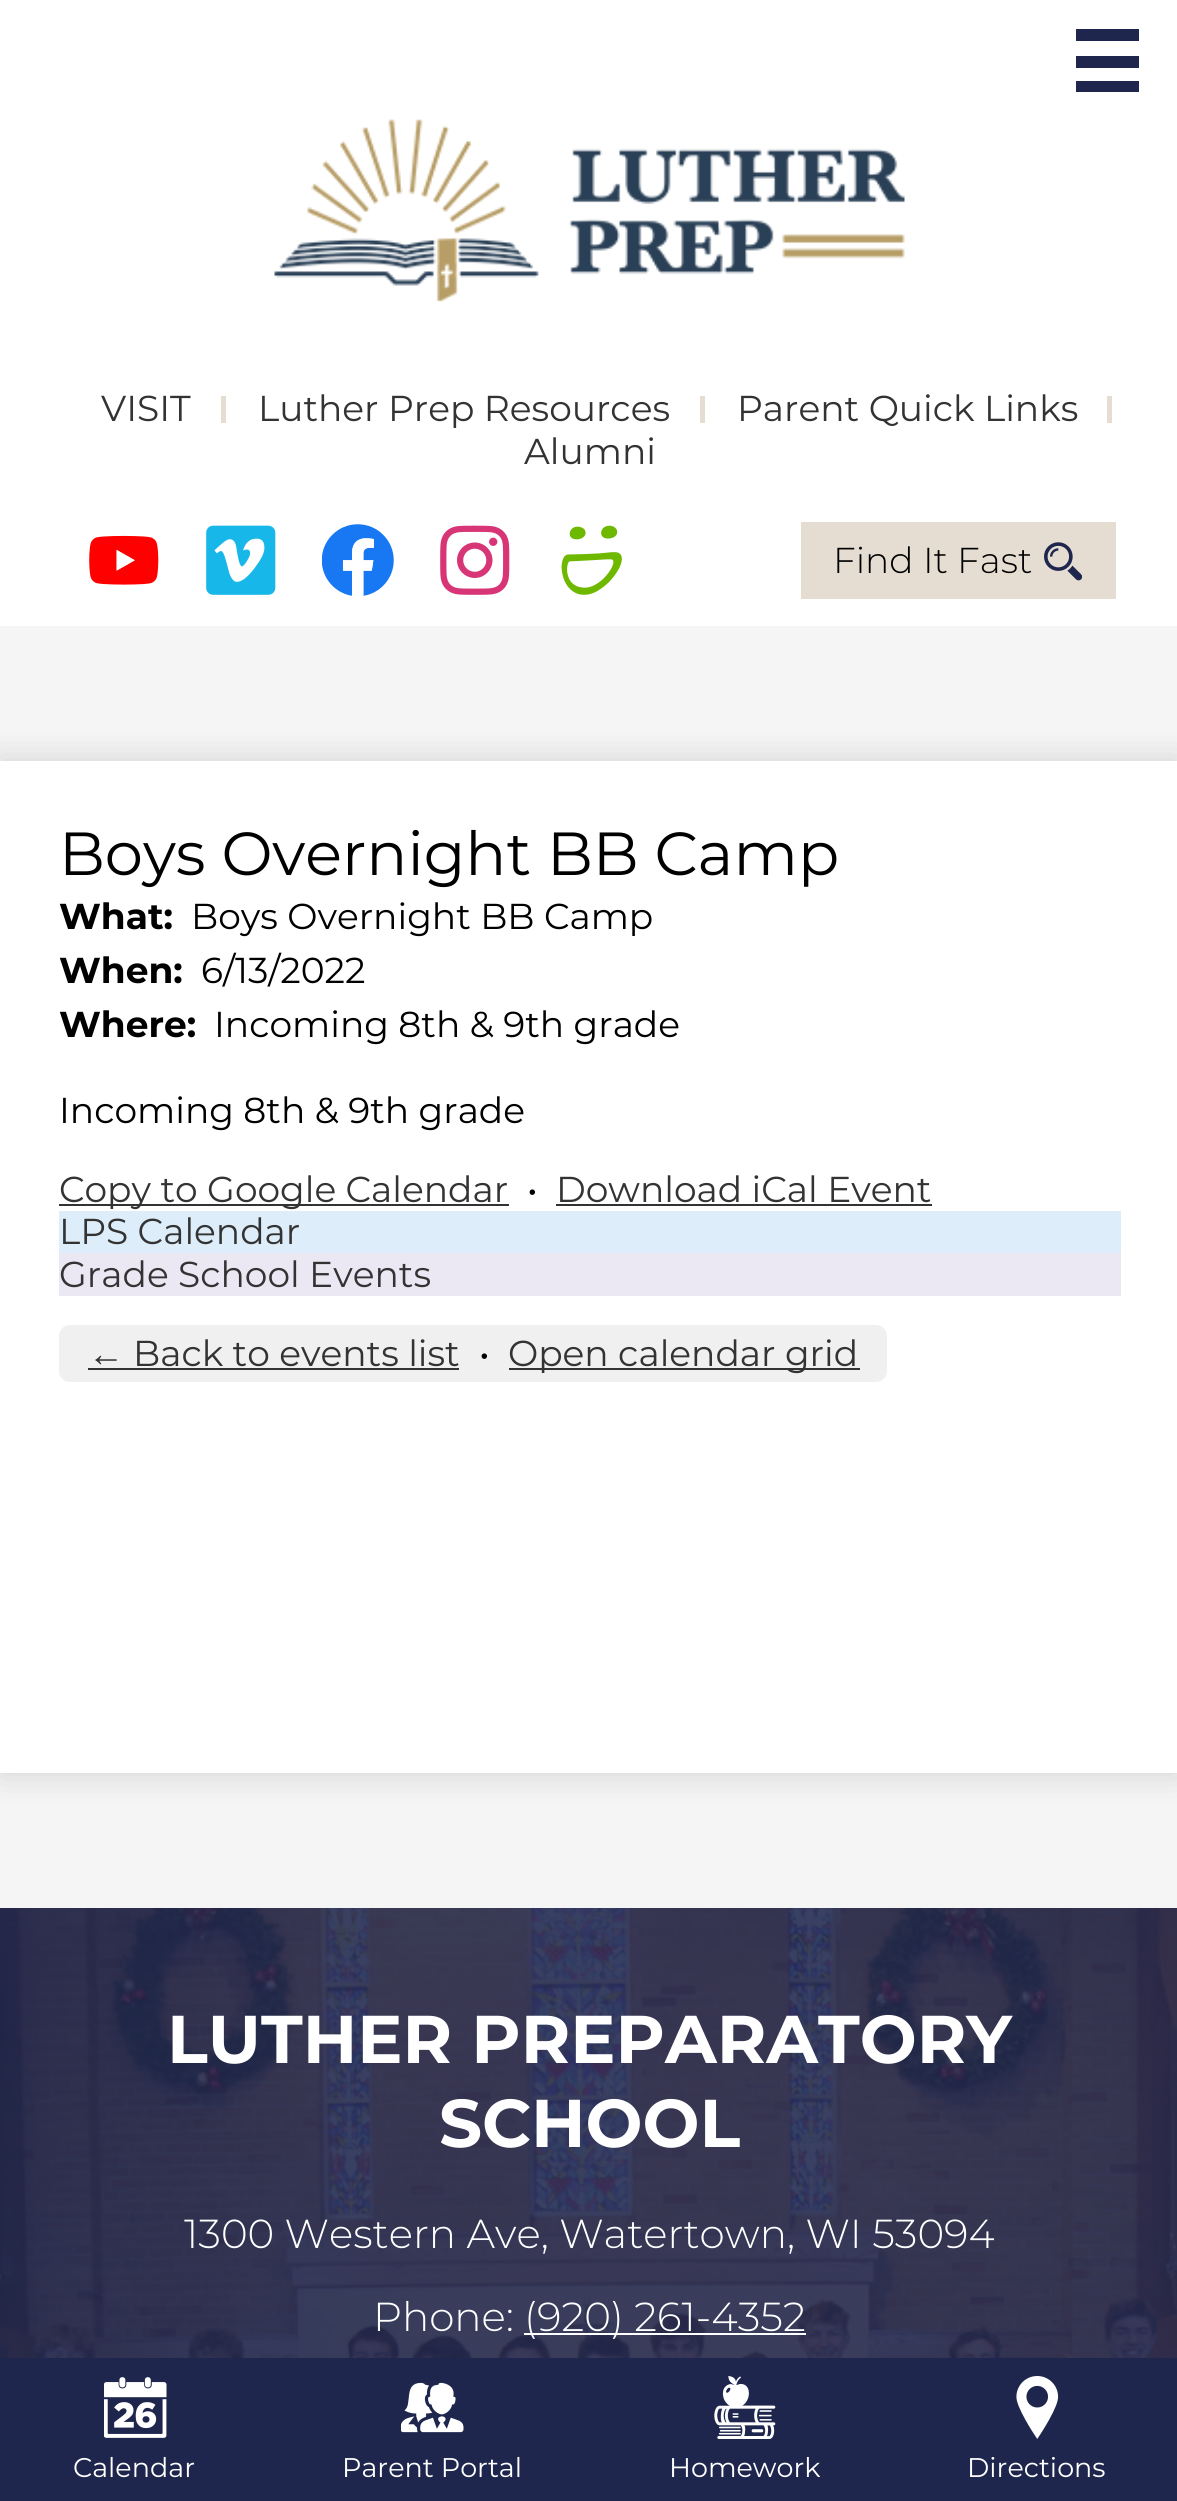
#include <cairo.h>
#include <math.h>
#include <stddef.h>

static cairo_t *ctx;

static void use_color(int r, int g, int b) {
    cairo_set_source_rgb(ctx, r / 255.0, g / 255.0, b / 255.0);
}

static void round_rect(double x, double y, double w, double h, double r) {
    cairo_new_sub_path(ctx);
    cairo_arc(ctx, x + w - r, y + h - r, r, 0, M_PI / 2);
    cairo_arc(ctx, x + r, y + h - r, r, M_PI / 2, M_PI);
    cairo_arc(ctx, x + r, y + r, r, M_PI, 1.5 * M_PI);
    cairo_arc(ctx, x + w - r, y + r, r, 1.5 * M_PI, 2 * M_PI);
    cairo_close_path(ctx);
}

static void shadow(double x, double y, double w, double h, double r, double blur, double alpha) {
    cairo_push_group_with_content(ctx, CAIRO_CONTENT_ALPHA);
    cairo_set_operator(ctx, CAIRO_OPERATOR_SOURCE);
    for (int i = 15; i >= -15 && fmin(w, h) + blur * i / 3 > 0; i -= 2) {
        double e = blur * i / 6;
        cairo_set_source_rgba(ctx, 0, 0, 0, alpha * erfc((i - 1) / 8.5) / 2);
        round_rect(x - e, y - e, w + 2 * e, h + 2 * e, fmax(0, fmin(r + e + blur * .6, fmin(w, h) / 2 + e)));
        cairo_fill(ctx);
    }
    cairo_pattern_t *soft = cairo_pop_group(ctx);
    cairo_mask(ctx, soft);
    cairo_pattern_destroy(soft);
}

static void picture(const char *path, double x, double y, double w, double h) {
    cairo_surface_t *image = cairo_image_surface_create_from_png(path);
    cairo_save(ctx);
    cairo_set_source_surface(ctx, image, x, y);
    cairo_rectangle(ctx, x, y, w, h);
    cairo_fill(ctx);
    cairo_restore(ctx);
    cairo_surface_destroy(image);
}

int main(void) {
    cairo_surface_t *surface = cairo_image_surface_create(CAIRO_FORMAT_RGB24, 1177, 2501);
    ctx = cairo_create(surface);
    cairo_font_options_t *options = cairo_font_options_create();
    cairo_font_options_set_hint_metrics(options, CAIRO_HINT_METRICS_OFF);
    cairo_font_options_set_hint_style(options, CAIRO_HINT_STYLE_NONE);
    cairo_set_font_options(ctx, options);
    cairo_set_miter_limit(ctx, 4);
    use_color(245, 245, 245);
    cairo_paint(ctx);
    use_color(255, 255, 255);
    cairo_rectangle(ctx, 0, 0, 1177, 626);
    cairo_fill(ctx);
    use_color(30, 38, 77);
    cairo_rectangle(ctx, 1076, 29, 63, 12);
    cairo_fill(ctx);
    cairo_rectangle(ctx, 1076, 56, 63, 12);
    cairo_fill(ctx);
    cairo_rectangle(ctx, 1076, 81, 63, 11);
    cairo_fill(ctx);
    picture("img1.png", 274, 119, 631, 183);
    cairo_select_font_face(ctx, "Montserrat", CAIRO_FONT_SLANT_NORMAL, CAIRO_FONT_WEIGHT_NORMAL);
    cairo_set_font_size(ctx, 36);
    use_color(51, 51, 51);
    cairo_move_to(ctx, 101, 421);
    cairo_show_text(ctx, "VISIT");
    use_color(229, 221, 209);
    cairo_rectangle(ctx, 221, 396, 5, 27);
    cairo_fill(ctx);
    use_color(51, 51, 51);
    cairo_move_to(ctx, 258, 421);
    cairo_show_text(ctx, "Luther Prep Resources");
    use_color(229, 221, 209);
    cairo_rectangle(ctx, 700, 396, 5, 27);
    cairo_fill(ctx);
    use_color(51, 51, 51);
    cairo_move_to(ctx, 737, 421);
    cairo_show_text(ctx, "Parent Quick Links");
    use_color(229, 221, 209);
    cairo_rectangle(ctx, 1107, 396, 5, 27);
    cairo_fill(ctx);
    use_color(51, 51, 51);
    cairo_move_to(ctx, 524, 464);
    cairo_show_text(ctx, "Alumni");
    picture("img2.png", 89, 535, 70, 50);
    picture("img3.png", 206, 525, 70, 70);
    picture("img4.png", 322, 524, 72, 72);
    picture("img5.png", 440, 525, 70, 70);
    picture("img6.png", 561, 525, 61, 70);
    use_color(229, 221, 209);
    cairo_rectangle(ctx, 801, 522, 315, 77);
    cairo_fill(ctx);
    cairo_select_font_face(ctx, "Montserrat Light", CAIRO_FONT_SLANT_NORMAL, CAIRO_FONT_WEIGHT_NORMAL);
    use_color(0, 0, 0);
    cairo_move_to(ctx, 833, 573);
    cairo_show_text(ctx, "Find It Fast");
    picture("img7.png", 1044, 542, 38, 39);
    use_color(0, 0, 0);
    shadow(0, 761, 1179, 1012, 0, 17, 0.15);
    use_color(255, 255, 255);
    cairo_rectangle(ctx, 0, 761, 1177, 1012);
    cairo_fill(ctx);
    cairo_select_font_face(ctx, "Montserrat", CAIRO_FONT_SLANT_NORMAL, CAIRO_FONT_WEIGHT_NORMAL);
    cairo_set_font_size(ctx, 60.75);
    use_color(0, 0, 0);
    cairo_move_to(ctx, 59, 875);
    cairo_show_text(ctx, "Boys Overnight BB Camp");
    cairo_select_font_face(ctx, "Montserrat", CAIRO_FONT_SLANT_NORMAL, CAIRO_FONT_WEIGHT_BOLD);
    cairo_set_font_size(ctx, 36);
    cairo_move_to(ctx, 59, 929);
    cairo_show_text(ctx, "What:");
    cairo_select_font_face(ctx, "Montserrat", CAIRO_FONT_SLANT_NORMAL, CAIRO_FONT_WEIGHT_NORMAL);
    cairo_move_to(ctx, 191, 929);
    cairo_show_text(ctx, "Boys Overnight BB Camp");
    cairo_select_font_face(ctx, "Montserrat", CAIRO_FONT_SLANT_NORMAL, CAIRO_FONT_WEIGHT_BOLD);
    cairo_move_to(ctx, 59, 983);
    cairo_show_text(ctx, "When:");
    cairo_select_font_face(ctx, "Montserrat", CAIRO_FONT_SLANT_NORMAL, CAIRO_FONT_WEIGHT_NORMAL);
    cairo_move_to(ctx, 201, 983);
    cairo_show_text(ctx, "6/13/2022");
    cairo_select_font_face(ctx, "Montserrat", CAIRO_FONT_SLANT_NORMAL, CAIRO_FONT_WEIGHT_BOLD);
    cairo_move_to(ctx, 59, 1037);
    cairo_show_text(ctx, "Where:");
    cairo_select_font_face(ctx, "Montserrat", CAIRO_FONT_SLANT_NORMAL, CAIRO_FONT_WEIGHT_NORMAL);
    cairo_move_to(ctx, 214, 1037);
    cairo_show_text(ctx, "Incoming 8th & 9th grade");
    cairo_move_to(ctx, 59, 1123);
    cairo_show_text(ctx, "Incoming 8th & 9th grade");
    use_color(51, 51, 51);
    cairo_rectangle(ctx, 59, 1204, 450, 2);
    cairo_fill(ctx);
    cairo_move_to(ctx, 59, 1202);
    cairo_show_text(ctx, "Copy to Google Calendar");
    use_color(0, 0, 0);
    cairo_move_to(ctx, 527, 1202);
    cairo_show_text(ctx, "•");
    use_color(51, 51, 51);
    cairo_move_to(ctx, 556, 1202);
    cairo_show_text(ctx, "Download iCal Event");
    cairo_rectangle(ctx, 556, 1204, 376, 2);
    cairo_fill(ctx);
    use_color(221, 238, 250);
    cairo_rectangle(ctx, 59, 1211, 1062, 42);
    cairo_fill(ctx);
    use_color(51, 51, 51);
    cairo_move_to(ctx, 59, 1244);
    cairo_show_text(ctx, "LPS Calendar");
    use_color(235, 231, 243);
    cairo_rectangle(ctx, 59, 1253, 1062, 43);
    cairo_fill(ctx);
    use_color(51, 51, 51);
    cairo_move_to(ctx, 59, 1287);
    cairo_show_text(ctx, "Grade School Events");
    use_color(240, 240, 240);
    round_rect(59, 1325, 828, 57, 11);
    cairo_fill(ctx);
    cairo_select_font_face(ctx, "Liberation Sans", CAIRO_FONT_SLANT_NORMAL, CAIRO_FONT_WEIGHT_NORMAL);
    use_color(51, 51, 51);
    cairo_move_to(ctx, 88, 1366);
    cairo_show_text(ctx, "←");
    cairo_rectangle(ctx, 88, 1368, 371, 2);
    cairo_fill(ctx);
    cairo_select_font_face(ctx, "Montserrat", CAIRO_FONT_SLANT_NORMAL, CAIRO_FONT_WEIGHT_NORMAL);
    cairo_move_to(ctx, 133, 1366);
    cairo_show_text(ctx, "Back to events list");
    use_color(0, 0, 0);
    cairo_move_to(ctx, 479, 1366);
    cairo_show_text(ctx, "•");
    use_color(51, 51, 51);
    cairo_rectangle(ctx, 509, 1368, 351, 2);
    cairo_fill(ctx);
    cairo_move_to(ctx, 508, 1366);
    cairo_show_text(ctx, "Open calendar grid");
    picture("img8.png", 0, 1908, 1177, 450);
    cairo_select_font_face(ctx, "Montserrat", CAIRO_FONT_SLANT_NORMAL, CAIRO_FONT_WEIGHT_BOLD);
    cairo_set_font_size(ctx, 67.5);
    use_color(255, 255, 255);
    cairo_move_to(ctx, 167, 2063);
    cairo_show_text(ctx, "LUTHER PREPARATORY");
    cairo_move_to(ctx, 439, 2147);
    cairo_show_text(ctx, "SCHOOL");
    cairo_select_font_face(ctx, "Montserrat Light", CAIRO_FONT_SLANT_NORMAL, CAIRO_FONT_WEIGHT_NORMAL);
    cairo_set_font_size(ctx, 40.5);
    cairo_move_to(ctx, 184, 2248);
    cairo_show_text(ctx, "1300 Western Ave, Watertown, WI 53094");
    cairo_move_to(ctx, 373, 2331);
    cairo_show_text(ctx, "Phone:");
    cairo_rectangle(ctx, 524, 2333, 282, 2);
    cairo_fill(ctx);
    cairo_move_to(ctx, 524, 2331);
    cairo_show_text(ctx, "(920) 261-4352");
    use_color(30, 38, 77);
    cairo_rectangle(ctx, 0, 2358, 1177, 143);
    cairo_fill(ctx);
    picture("img9.png", 104, 2377, 63, 61);
    cairo_select_font_face(ctx, "Montserrat", CAIRO_FONT_SLANT_NORMAL, CAIRO_FONT_WEIGHT_NORMAL);
    cairo_set_font_size(ctx, 27);
    use_color(255, 255, 255);
    cairo_move_to(ctx, 73, 2477);
    cairo_show_text(ctx, "Calendar");
    picture("img10.png", 401, 2382, 63, 51);
    cairo_move_to(ctx, 342, 2477);
    cairo_show_text(ctx, "Parent Portal");
    picture("img11.png", 714, 2376, 62, 63);
    cairo_move_to(ctx, 669, 2477);
    cairo_show_text(ctx, "Homework");
    picture("img12.png", 1016, 2376, 43, 63);
    cairo_move_to(ctx, 967, 2477);
    cairo_show_text(ctx, "Directions");
    cairo_surface_write_to_png(surface, "result.png");
    cairo_font_options_destroy(options);
    cairo_destroy(ctx);
    cairo_surface_destroy(surface);
    return 0;
}
